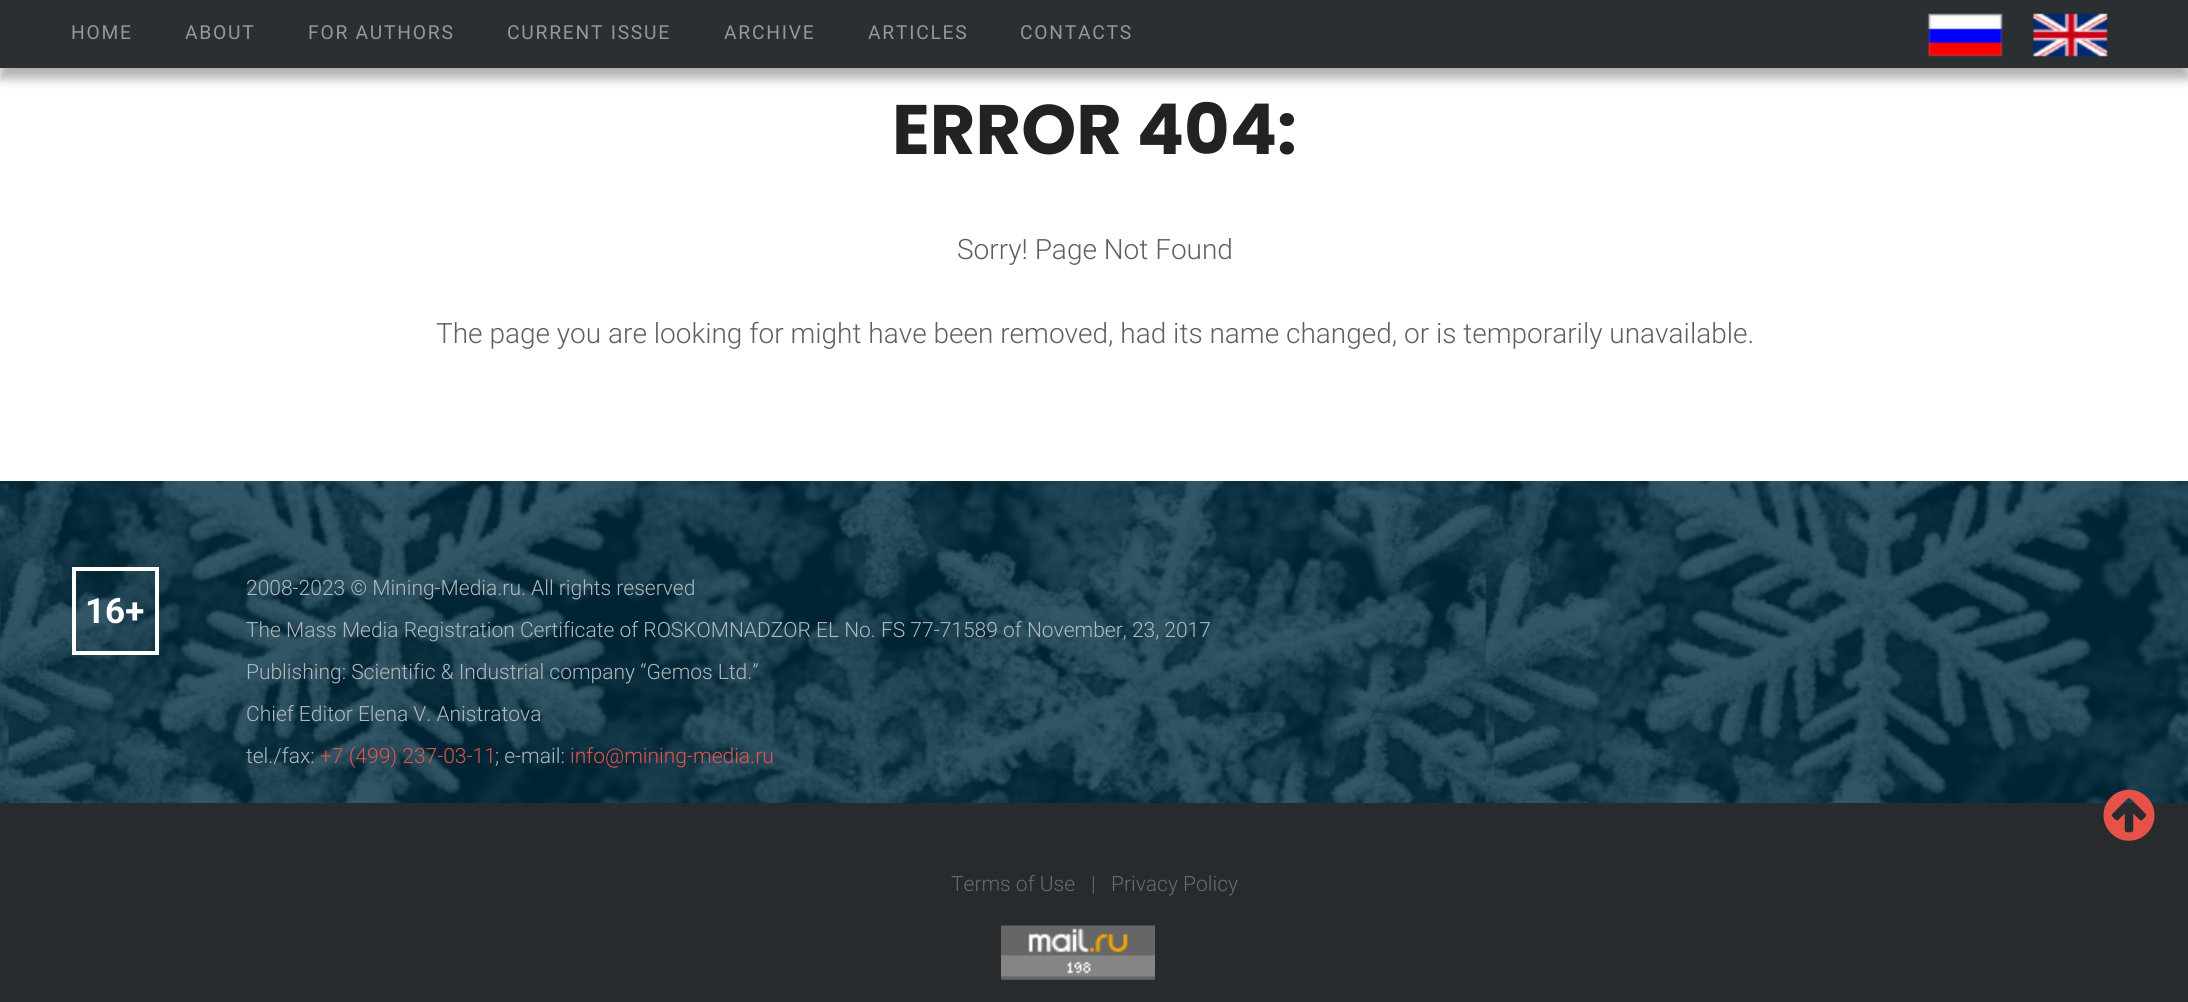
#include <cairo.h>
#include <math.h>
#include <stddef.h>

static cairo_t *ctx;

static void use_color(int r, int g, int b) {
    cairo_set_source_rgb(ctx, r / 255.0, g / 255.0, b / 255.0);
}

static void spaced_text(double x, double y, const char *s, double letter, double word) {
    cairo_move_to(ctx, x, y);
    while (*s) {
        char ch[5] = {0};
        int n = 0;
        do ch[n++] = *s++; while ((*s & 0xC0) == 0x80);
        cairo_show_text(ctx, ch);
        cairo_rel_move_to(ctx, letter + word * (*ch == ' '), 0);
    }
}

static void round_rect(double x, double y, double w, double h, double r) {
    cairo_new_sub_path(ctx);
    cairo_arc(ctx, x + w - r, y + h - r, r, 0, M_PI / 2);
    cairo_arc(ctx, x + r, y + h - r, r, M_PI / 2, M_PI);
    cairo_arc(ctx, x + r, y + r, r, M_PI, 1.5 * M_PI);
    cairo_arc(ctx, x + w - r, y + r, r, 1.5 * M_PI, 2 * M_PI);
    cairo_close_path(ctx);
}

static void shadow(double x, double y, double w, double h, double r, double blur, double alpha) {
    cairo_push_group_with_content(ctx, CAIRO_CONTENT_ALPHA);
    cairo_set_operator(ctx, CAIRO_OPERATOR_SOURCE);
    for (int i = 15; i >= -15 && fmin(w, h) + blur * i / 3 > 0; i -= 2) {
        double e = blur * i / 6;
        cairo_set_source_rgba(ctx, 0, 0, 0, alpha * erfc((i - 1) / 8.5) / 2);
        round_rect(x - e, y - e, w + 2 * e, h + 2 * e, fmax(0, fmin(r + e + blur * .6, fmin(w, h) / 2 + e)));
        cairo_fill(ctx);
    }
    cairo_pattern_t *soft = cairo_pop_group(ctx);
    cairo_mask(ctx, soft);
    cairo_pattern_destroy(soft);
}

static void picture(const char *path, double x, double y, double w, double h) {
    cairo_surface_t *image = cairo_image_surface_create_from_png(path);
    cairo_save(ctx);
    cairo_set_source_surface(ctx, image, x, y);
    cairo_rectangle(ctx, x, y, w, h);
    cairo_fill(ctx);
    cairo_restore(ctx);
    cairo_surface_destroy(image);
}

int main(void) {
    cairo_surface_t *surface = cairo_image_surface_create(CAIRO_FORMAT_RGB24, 2188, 1002);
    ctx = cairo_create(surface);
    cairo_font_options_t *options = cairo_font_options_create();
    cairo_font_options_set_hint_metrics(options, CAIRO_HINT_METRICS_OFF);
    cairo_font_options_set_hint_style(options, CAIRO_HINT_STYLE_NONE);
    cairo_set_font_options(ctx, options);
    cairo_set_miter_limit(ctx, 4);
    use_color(255, 255, 255);
    cairo_paint(ctx);
    use_color(0, 0, 0);
    shadow(0, 11, 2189, 68, 0, 5, 0.3);
    use_color(42, 47, 50);
    cairo_rectangle(ctx, 0, 0, 2188, 68);
    cairo_fill(ctx);
    cairo_select_font_face(ctx, "Roboto", CAIRO_FONT_SLANT_NORMAL, CAIRO_FONT_WEIGHT_NORMAL);
    cairo_set_font_size(ctx, 19.25);
    use_color(145, 153, 157);
    spaced_text(71, 39, "HOME", 1.75, 0);
    spaced_text(185, 39, "ABOUT", 1.75, 0);
    spaced_text(308, 39, "FOR AUTHORS", 1.75, 0);
    spaced_text(507, 39, "CURRENT ISSUE", 1.75, 0);
    spaced_text(724, 39, "ARCHIVE", 1.75, 0);
    spaced_text(868, 39, "АRTICLES", 1.75, 0);
    spaced_text(1020, 39, "CONTACTS", 1.75, 0);
    picture("img1.png", 1927, 13, 76, 44);
    picture("img2.png", 2032, 13, 76, 44);
    cairo_select_font_face(ctx, "Poppins", CAIRO_FONT_SLANT_NORMAL, CAIRO_FONT_WEIGHT_BOLD);
    cairo_set_font_size(ctx, 70);
    use_color(34, 34, 34);
    cairo_move_to(ctx, 892, 154);
    cairo_show_text(ctx, "ERROR 404:");
    cairo_select_font_face(ctx, "Roboto Light", CAIRO_FONT_SLANT_NORMAL, CAIRO_FONT_WEIGHT_NORMAL);
    cairo_set_font_size(ctx, 28);
    use_color(95, 95, 95);
    cairo_move_to(ctx, 957, 259);
    cairo_show_text(ctx, "Sorry! Page Not Found");
    cairo_move_to(ctx, 436, 343);
    cairo_show_text(ctx, "The page you are looking for might have been removed, had its name changed, or is temporarily unavailable.");
    use_color(0, 44, 66);
    cairo_rectangle(ctx, 0, 481, 2188, 322);
    cairo_fill(ctx);
    picture("img3.png", 0, 481, 2188, 322);
    cairo_rectangle(ctx, 74, 569, 83, 84);
    use_color(255, 255, 255);
    cairo_set_line_width(ctx, 4);
    cairo_stroke(ctx);
    cairo_select_font_face(ctx, "Roboto", CAIRO_FONT_SLANT_NORMAL, CAIRO_FONT_WEIGHT_BOLD);
    cairo_set_font_size(ctx, 35);
    cairo_move_to(ctx, 85, 623);
    cairo_show_text(ctx, "16+");
    cairo_select_font_face(ctx, "Roboto Light", CAIRO_FONT_SLANT_NORMAL, CAIRO_FONT_WEIGHT_NORMAL);
    cairo_set_font_size(ctx, 21);
    use_color(178, 184, 187);
    cairo_move_to(ctx, 246, 595);
    cairo_show_text(ctx, "2008-2023 © Mining-Media.ru. All rights reserved");
    cairo_move_to(ctx, 246, 637);
    cairo_show_text(ctx, "The Mass Media Registration Certificate of ROSKOMNADZOR EL No. FS 77-71589 of November, 23, 2017");
    cairo_move_to(ctx, 246, 679);
    cairo_show_text(ctx, "Publishing: Scientific & Industrial company “Gemos Ltd.”");
    cairo_move_to(ctx, 246, 721);
    cairo_show_text(ctx, "Chief Editor Elena V. Anistratova");
    cairo_move_to(ctx, 246, 763);
    cairo_show_text(ctx, "tel./fax:");
    use_color(231, 82, 72);
    cairo_move_to(ctx, 320, 763);
    cairo_show_text(ctx, "+7 (499) 237-03-11");
    use_color(178, 184, 187);
    cairo_move_to(ctx, 495, 763);
    cairo_show_text(ctx, "; e-mail:");
    use_color(231, 82, 72);
    cairo_move_to(ctx, 570, 763);
    cairo_show_text(ctx, "info@mining-media.ru");
    use_color(39, 43, 46);
    cairo_rectangle(ctx, 0, 803, 2188, 199);
    cairo_fill(ctx);
    use_color(101, 107, 111);
    cairo_move_to(ctx, 951, 891);
    cairo_show_text(ctx, "Terms of Use");
    cairo_move_to(ctx, 1091, 891);
    cairo_show_text(ctx, "|");
    cairo_move_to(ctx, 1111, 891);
    cairo_show_text(ctx, "Privacy Policy");
    picture("img4.png", 1001, 925, 154, 55);
    picture("img5.png", 2103, 789, 52, 52);
    cairo_surface_write_to_png(surface, "result.png");
    cairo_font_options_destroy(options);
    cairo_destroy(ctx);
    cairo_surface_destroy(surface);
    return 0;
}
